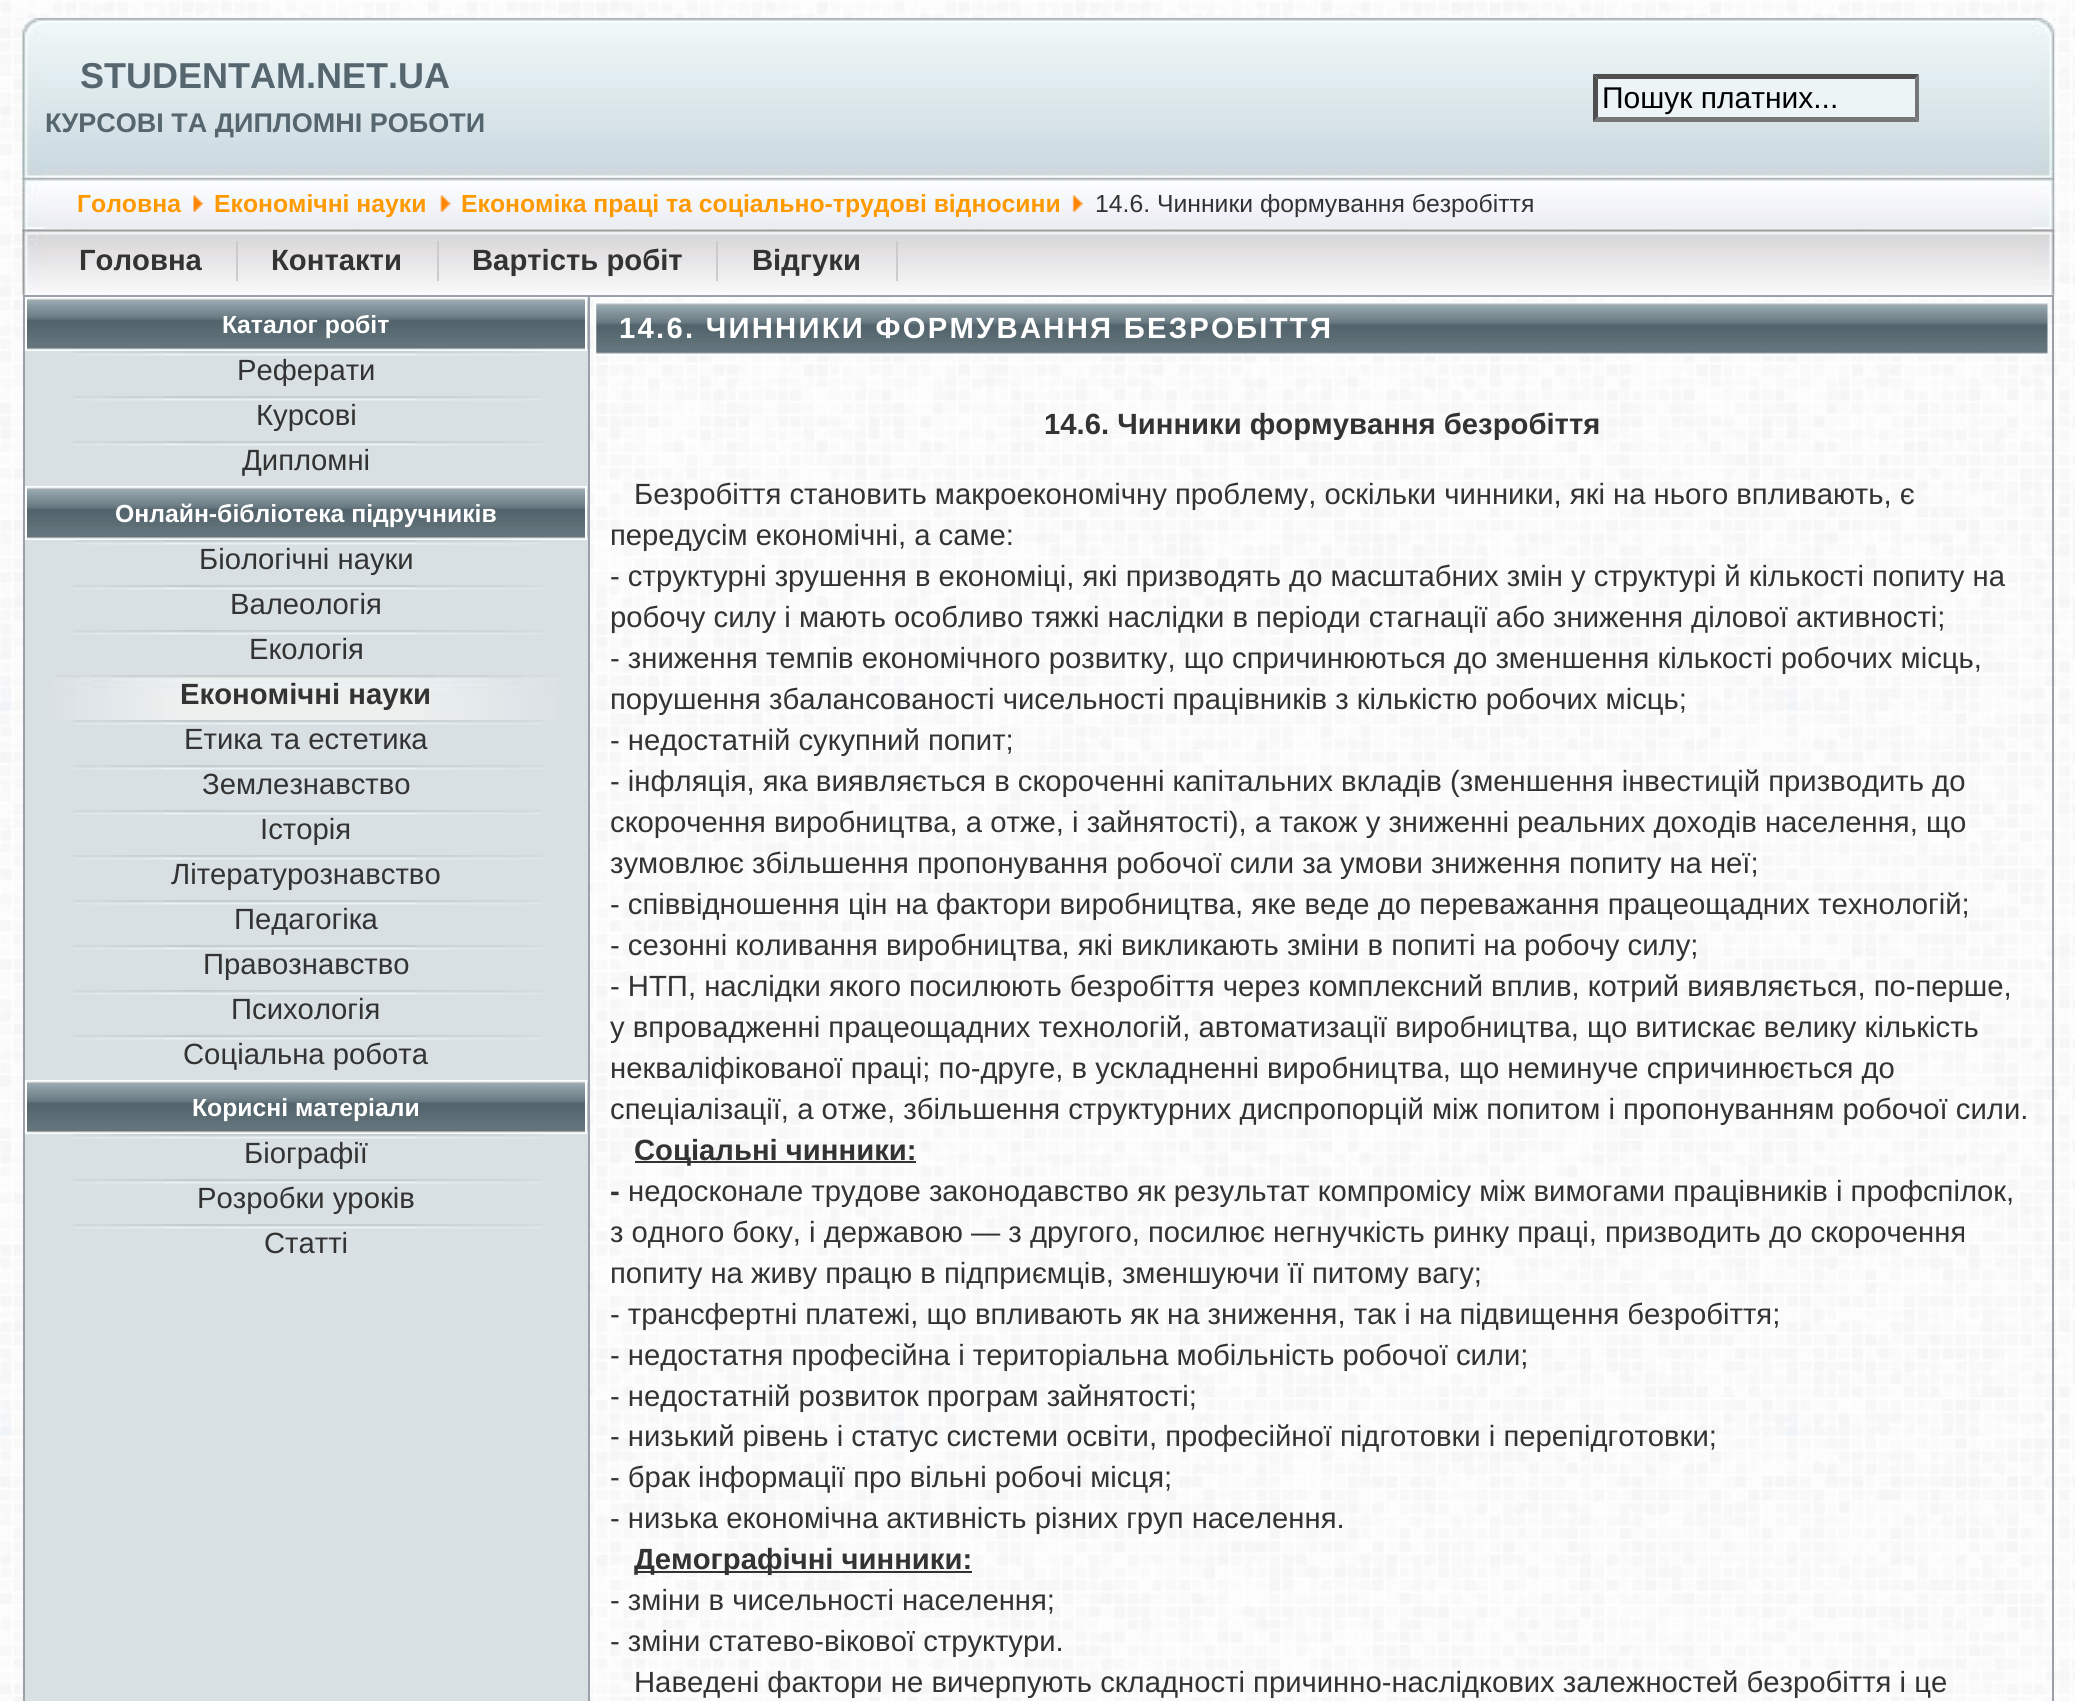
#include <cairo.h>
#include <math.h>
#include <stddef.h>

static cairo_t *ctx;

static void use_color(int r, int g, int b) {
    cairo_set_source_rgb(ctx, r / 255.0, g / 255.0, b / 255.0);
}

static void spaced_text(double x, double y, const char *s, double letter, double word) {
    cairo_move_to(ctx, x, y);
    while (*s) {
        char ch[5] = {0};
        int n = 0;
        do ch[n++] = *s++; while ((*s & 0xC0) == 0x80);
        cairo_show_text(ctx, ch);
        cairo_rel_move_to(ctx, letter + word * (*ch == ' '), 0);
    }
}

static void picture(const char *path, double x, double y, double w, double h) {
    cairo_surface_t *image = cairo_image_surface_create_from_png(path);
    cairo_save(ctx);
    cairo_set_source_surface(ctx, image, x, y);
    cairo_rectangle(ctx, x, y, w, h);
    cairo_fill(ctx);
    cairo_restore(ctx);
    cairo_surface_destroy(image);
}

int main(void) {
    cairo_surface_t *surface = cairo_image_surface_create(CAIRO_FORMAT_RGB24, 2075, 1701);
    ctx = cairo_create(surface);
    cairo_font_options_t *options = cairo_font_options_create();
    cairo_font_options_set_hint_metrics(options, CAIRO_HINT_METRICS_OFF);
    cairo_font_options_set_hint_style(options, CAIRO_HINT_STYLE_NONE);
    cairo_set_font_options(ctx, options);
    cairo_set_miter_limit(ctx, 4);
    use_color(255, 255, 255);
    cairo_paint(ctx);
    picture("img1.png", 0, 0, 2075, 1701);
    picture("img2.png", 22, 18, 2033, 160);
    picture("img5.png", 22, 177, 2033, 53);
    picture("img3.png", 22, 18, 23, 160);
    cairo_select_font_face(ctx, "Liberation Sans", CAIRO_FONT_SLANT_NORMAL, CAIRO_FONT_WEIGHT_BOLD);
    cairo_set_font_size(ctx, 36);
    use_color(86, 102, 110);
    cairo_move_to(ctx, 80, 88);
    cairo_show_text(ctx, "STUDENTAM.NET.UA");
    cairo_set_font_size(ctx, 27);
    cairo_move_to(ctx, 45, 132);
    cairo_show_text(ctx, "КУРСОВІ ТА ДИПЛОМНІ РОБОТИ");
    use_color(236, 244, 246);
    cairo_rectangle(ctx, 1593, 74, 326, 48);
    cairo_fill(ctx);
    use_color(79, 79, 79);
    cairo_new_path(ctx);
    cairo_move_to(ctx, 1593, 74);
    cairo_line_to(ctx, 1919, 74);
    cairo_line_to(ctx, 1915, 79);
    cairo_line_to(ctx, 1598, 79);
    cairo_close_path(ctx);
    cairo_fill(ctx);
    use_color(118, 118, 118);
    cairo_new_path(ctx);
    cairo_move_to(ctx, 1919, 74);
    cairo_line_to(ctx, 1919, 122);
    cairo_line_to(ctx, 1915, 117);
    cairo_line_to(ctx, 1915, 79);
    cairo_close_path(ctx);
    cairo_fill(ctx);
    cairo_new_path(ctx);
    cairo_move_to(ctx, 1919, 122);
    cairo_line_to(ctx, 1593, 122);
    cairo_line_to(ctx, 1598, 117);
    cairo_line_to(ctx, 1915, 117);
    cairo_close_path(ctx);
    cairo_fill(ctx);
    use_color(79, 79, 79);
    cairo_new_path(ctx);
    cairo_move_to(ctx, 1593, 122);
    cairo_line_to(ctx, 1593, 74);
    cairo_line_to(ctx, 1598, 79);
    cairo_line_to(ctx, 1598, 117);
    cairo_close_path(ctx);
    cairo_fill(ctx);
    cairo_select_font_face(ctx, "Liberation Sans", CAIRO_FONT_SLANT_NORMAL, CAIRO_FONT_WEIGHT_NORMAL);
    cairo_set_font_size(ctx, 30);
    use_color(0, 0, 0);
    cairo_move_to(ctx, 1602, 108);
    cairo_show_text(ctx, "Пошук платних...");
    picture("img4.png", 2032, 18, 23, 160);
    picture("img11.png", 22, 229, 2033, 66);
    picture("img6.png", 22, 177, 23, 53);
    cairo_select_font_face(ctx, "Liberation Sans", CAIRO_FONT_SLANT_NORMAL, CAIRO_FONT_WEIGHT_BOLD);
    cairo_set_font_size(ctx, 24.75);
    use_color(255, 153, 0);
    cairo_move_to(ctx, 77, 212);
    cairo_show_text(ctx, "Головна");
    picture("img7.png", 193, 195, 11, 17);
    cairo_move_to(ctx, 214, 212);
    cairo_show_text(ctx, "Економічні науки");
    picture("img8.png", 440, 195, 11, 17);
    cairo_move_to(ctx, 461, 212);
    cairo_show_text(ctx, "Економіка праці та соціально-трудові відносини");
    picture("img9.png", 1072, 195, 11, 17);
    cairo_select_font_face(ctx, "Liberation Sans", CAIRO_FONT_SLANT_NORMAL, CAIRO_FONT_WEIGHT_NORMAL);
    use_color(51, 51, 51);
    cairo_move_to(ctx, 1095, 212);
    cairo_show_text(ctx, "14.6. Чинники формування безробіття");
    picture("img10.png", 2031, 177, 24, 53);
    picture("img12.png", 22, 229, 23, 66);
    use_color(204, 204, 204);
    cairo_rectangle(ctx, 236, 241, 2, 40);
    cairo_fill(ctx);
    cairo_select_font_face(ctx, "Liberation Sans", CAIRO_FONT_SLANT_NORMAL, CAIRO_FONT_WEIGHT_BOLD);
    cairo_set_font_size(ctx, 29.25);
    use_color(51, 51, 51);
    cairo_move_to(ctx, 79, 270);
    cairo_show_text(ctx, "Головна");
    use_color(204, 204, 204);
    cairo_rectangle(ctx, 437, 241, 2, 40);
    cairo_fill(ctx);
    use_color(51, 51, 51);
    cairo_move_to(ctx, 271, 270);
    cairo_show_text(ctx, "Контакти");
    use_color(204, 204, 204);
    cairo_rectangle(ctx, 716, 241, 2, 40);
    cairo_fill(ctx);
    use_color(51, 51, 51);
    cairo_move_to(ctx, 472, 270);
    cairo_show_text(ctx, "Вартість робіт");
    use_color(204, 204, 204);
    cairo_rectangle(ctx, 896, 241, 2, 40);
    cairo_fill(ctx);
    use_color(51, 51, 51);
    cairo_move_to(ctx, 752, 270);
    cairo_show_text(ctx, "Відгуки");
    picture("img13.png", 2031, 229, 24, 66);
    use_color(216, 224, 227);
    cairo_rectangle(ctx, 24, 296, 565, 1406);
    cairo_fill_preserve(ctx);
    use_color(153, 160, 170);
    cairo_stroke(ctx);
    picture("img14.png", 27, 297, 561, 54);
    use_color(255, 255, 255);
    cairo_rectangle(ctx, 585, 297, 2, 54);
    cairo_fill(ctx);
    cairo_rectangle(ctx, 25, 297, 2, 54);
    cairo_fill(ctx);
    picture("img15.png", 73, 351, 469, 5);
    picture("img15.png", 73, 396, 469, 5);
    picture("img15.png", 73, 441, 469, 5);
    picture("img16.png", 27, 486, 561, 54);
    cairo_rectangle(ctx, 585, 486, 2, 54);
    cairo_fill(ctx);
    cairo_rectangle(ctx, 25, 486, 2, 54);
    cairo_fill(ctx);
    picture("img15.png", 73, 540, 469, 5);
    picture("img15.png", 73, 585, 469, 5);
    picture("img15.png", 73, 630, 469, 5);
    picture("img17.png", 53, 675, 506, 45);
    picture("img15.png", 73, 720, 469, 5);
    picture("img18.png", 73, 765, 469, 5);
    picture("img15.png", 73, 810, 469, 5);
    picture("img15.png", 73, 855, 469, 5);
    picture("img15.png", 73, 900, 469, 5);
    picture("img15.png", 73, 945, 469, 5);
    picture("img15.png", 73, 990, 469, 5);
    picture("img15.png", 73, 1035, 469, 5);
    picture("img19.png", 27, 1080, 561, 54);
    cairo_rectangle(ctx, 585, 1080, 2, 54);
    cairo_fill(ctx);
    cairo_rectangle(ctx, 25, 1080, 2, 54);
    cairo_fill(ctx);
    picture("img15.png", 73, 1134, 469, 5);
    picture("img15.png", 73, 1179, 469, 5);
    picture("img15.png", 73, 1224, 469, 5);
    picture("img20.png", 596, 301, 1452, 55);
    use_color(51, 51, 51);
    cairo_rectangle(ctx, 635, 1161, 281, 2);
    cairo_fill(ctx);
    cairo_rectangle(ctx, 635, 1571, 337, 2);
    cairo_fill(ctx);
    cairo_rectangle(ctx, 24, 296, 2029, 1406);
    use_color(153, 160, 170);
    cairo_stroke(ctx);
    cairo_set_font_size(ctx, 24.75);
    use_color(255, 255, 255);
    cairo_move_to(ctx, 222, 333);
    cairo_show_text(ctx, "Каталог робіт");
    cairo_select_font_face(ctx, "Liberation Sans", CAIRO_FONT_SLANT_NORMAL, CAIRO_FONT_WEIGHT_NORMAL);
    cairo_set_font_size(ctx, 29.25);
    use_color(51, 51, 51);
    cairo_move_to(ctx, 237, 380);
    cairo_show_text(ctx, "Реферати");
    cairo_move_to(ctx, 256, 425);
    cairo_show_text(ctx, "Курсові");
    cairo_move_to(ctx, 242, 470);
    cairo_show_text(ctx, "Дипломні");
    cairo_select_font_face(ctx, "Liberation Sans", CAIRO_FONT_SLANT_NORMAL, CAIRO_FONT_WEIGHT_BOLD);
    cairo_set_font_size(ctx, 24.75);
    use_color(255, 255, 255);
    cairo_move_to(ctx, 115, 522);
    cairo_show_text(ctx, "Онлайн-бібліотека підручників");
    cairo_select_font_face(ctx, "Liberation Sans", CAIRO_FONT_SLANT_NORMAL, CAIRO_FONT_WEIGHT_NORMAL);
    cairo_set_font_size(ctx, 29.25);
    use_color(51, 51, 51);
    cairo_move_to(ctx, 199, 569);
    cairo_show_text(ctx, "Біологічні науки");
    cairo_move_to(ctx, 230, 614);
    cairo_show_text(ctx, "Валеологія");
    cairo_move_to(ctx, 249, 659);
    cairo_show_text(ctx, "Екологія");
    cairo_select_font_face(ctx, "Liberation Sans", CAIRO_FONT_SLANT_NORMAL, CAIRO_FONT_WEIGHT_BOLD);
    cairo_move_to(ctx, 180, 704);
    cairo_show_text(ctx, "Економічні науки");
    cairo_select_font_face(ctx, "Liberation Sans", CAIRO_FONT_SLANT_NORMAL, CAIRO_FONT_WEIGHT_NORMAL);
    cairo_move_to(ctx, 184, 749);
    cairo_show_text(ctx, "Етика та естетика");
    cairo_move_to(ctx, 202, 794);
    cairo_show_text(ctx, "Землезнавство");
    cairo_move_to(ctx, 260, 839);
    cairo_show_text(ctx, "Історія");
    cairo_move_to(ctx, 171, 884);
    cairo_show_text(ctx, "Літературознавство");
    cairo_move_to(ctx, 234, 929);
    cairo_show_text(ctx, "Педагогіка");
    cairo_move_to(ctx, 203, 974);
    cairo_show_text(ctx, "Правознавство");
    cairo_move_to(ctx, 231, 1019);
    cairo_show_text(ctx, "Психологія");
    cairo_move_to(ctx, 183, 1064);
    cairo_show_text(ctx, "Соціальна робота");
    cairo_select_font_face(ctx, "Liberation Sans", CAIRO_FONT_SLANT_NORMAL, CAIRO_FONT_WEIGHT_BOLD);
    cairo_set_font_size(ctx, 24.75);
    use_color(255, 255, 255);
    cairo_move_to(ctx, 192, 1116);
    cairo_show_text(ctx, "Корисні матеріали");
    cairo_select_font_face(ctx, "Liberation Sans", CAIRO_FONT_SLANT_NORMAL, CAIRO_FONT_WEIGHT_NORMAL);
    cairo_set_font_size(ctx, 29.25);
    use_color(51, 51, 51);
    cairo_move_to(ctx, 244, 1163);
    cairo_show_text(ctx, "Біографії");
    cairo_move_to(ctx, 197, 1208);
    cairo_show_text(ctx, "Розробки уроків");
    cairo_move_to(ctx, 264, 1253);
    cairo_show_text(ctx, "Статті");
    cairo_select_font_face(ctx, "Liberation Sans", CAIRO_FONT_SLANT_NORMAL, CAIRO_FONT_WEIGHT_BOLD);
    use_color(255, 255, 255);
    spaced_text(619, 338, "14.6. ЧИННИКИ ФОРМУВАННЯ БЕЗРОБІТТЯ", 2.25, 0);
    use_color(51, 51, 51);
    cairo_move_to(ctx, 1044, 434);
    cairo_show_text(ctx, "14.6. Чинники формування безробіття");
    cairo_select_font_face(ctx, "Liberation Sans", CAIRO_FONT_SLANT_NORMAL, CAIRO_FONT_WEIGHT_NORMAL);
    cairo_move_to(ctx, 634, 504);
    cairo_show_text(ctx, "Безробiття становить макроекономiчну проблему, оскiльки чинники, якi на нього впливають, є");
    cairo_move_to(ctx, 610, 545);
    cairo_show_text(ctx, "передусiм економiчнi, а саме:");
    cairo_move_to(ctx, 610, 586);
    cairo_show_text(ctx, "- структурні зрушення в економiцi, якi призводять до масштабних змiн у структуpi й кiлькостi попиту на");
    cairo_move_to(ctx, 610, 627);
    cairo_show_text(ctx, "робочу силу i мають особливо тяжкi наслiдки в перiоди стагнацiї або зниження ділової активностi;");
    cairo_move_to(ctx, 610, 668);
    cairo_show_text(ctx, "- зниження темпів економічного розвитку, що спричинюються до зменшення кiлькостi робочих мiсць,");
    cairo_move_to(ctx, 610, 709);
    cairo_show_text(ctx, "порушення збалансованості чисельності працiвникiв з кiлькiстю робочих мiсць;");
    cairo_move_to(ctx, 610, 750);
    cairo_show_text(ctx, "- недостатнiй сукупний попит;");
    cairo_move_to(ctx, 610, 791);
    cairo_show_text(ctx, "- iнфляцiя, яка виявляється в скороченнi капiтальних вкладів (зменшення iнвестицiй призводить до");
    cairo_move_to(ctx, 610, 832);
    cairo_show_text(ctx, "скорочення виробництва, а отже, i зайнятостi), а також у зниженнi реальних доходiв населення, що");
    cairo_move_to(ctx, 610, 873);
    cairo_show_text(ctx, "зумовлює збiльшення пропонування робочої сили за умови зниження попиту на неї;");
    cairo_move_to(ctx, 610, 914);
    cairo_show_text(ctx, "- спiввiдношення цiн на фактори виробництва, яке веде до переважання працеощадних технологiй;");
    cairo_move_to(ctx, 610, 955);
    cairo_show_text(ctx, "- сезоннi коливання виробництва, якi викликають змiни в попитi на робочу силу;");
    cairo_move_to(ctx, 610, 996);
    cairo_show_text(ctx, "- НТП, наслiдки якого посилюють безробiття через комплексний вплив, котрий виявляється, по-перше,");
    cairo_move_to(ctx, 610, 1037);
    cairo_show_text(ctx, "у впровадженнi працеощадних технологiй, автоматизацiї виробництва, що витискає велику кiлькiсть");
    cairo_move_to(ctx, 610, 1078);
    cairo_show_text(ctx, "неквалiфiкованої працi; по-друге, в ускладненнi виробництва, що неминуче спричинюється до");
    cairo_move_to(ctx, 610, 1119);
    cairo_show_text(ctx, "спецiалiзацiї, а отже, збiльшення структурних диспропорцiй мiж попитом i пропонуванням робочої сили.");
    cairo_select_font_face(ctx, "Liberation Sans", CAIRO_FONT_SLANT_NORMAL, CAIRO_FONT_WEIGHT_BOLD);
    cairo_move_to(ctx, 634, 1160);
    cairo_show_text(ctx, "Соцiальнi чинники:");
    cairo_move_to(ctx, 610, 1201);
    cairo_show_text(ctx, "-");
    cairo_select_font_face(ctx, "Liberation Sans", CAIRO_FONT_SLANT_NORMAL, CAIRO_FONT_WEIGHT_NORMAL);
    cairo_move_to(ctx, 628, 1201);
    cairo_show_text(ctx, "недосконале трудове законодавство як результат компромісу мiж вимогами працiвникiв i профспiлок,");
    cairo_move_to(ctx, 610, 1242);
    cairo_show_text(ctx, "з одного боку, i державою — з другого, посилює негнучкiсть ринку працi, призводить до скорочення");
    cairo_move_to(ctx, 610, 1283);
    cairo_show_text(ctx, "попиту на живу працю в пiдприємцiв, зменшуючи її питому вагу;");
    cairo_move_to(ctx, 610, 1324);
    cairo_show_text(ctx, "- трансфертнi платежi, що впливають як на зниження, так i на пiдвищення безробiття;");
    cairo_move_to(ctx, 610, 1365);
    cairo_show_text(ctx, "- недостатня професiйна i територiальна мобiльнiсть робочої сили;");
    cairo_move_to(ctx, 610, 1406);
    cairo_show_text(ctx, "- недостатнiй розвиток програм зайнятостi;");
    cairo_move_to(ctx, 610, 1446);
    cairo_show_text(ctx, "- низький piвeнь i статус системи освiти, професiйної пiдготовки i перепiдготовки;");
    cairo_move_to(ctx, 610, 1487);
    cairo_show_text(ctx, "- брак iнформацiї про вiльнi робочi мiсця;");
    cairo_move_to(ctx, 610, 1528);
    cairo_show_text(ctx, "- низька економiчна активнiсть рiзних груп населення.");
    cairo_select_font_face(ctx, "Liberation Sans", CAIRO_FONT_SLANT_NORMAL, CAIRO_FONT_WEIGHT_BOLD);
    cairo_move_to(ctx, 634, 1569);
    cairo_show_text(ctx, "Демографічні чинники:");
    cairo_select_font_face(ctx, "Liberation Sans", CAIRO_FONT_SLANT_NORMAL, CAIRO_FONT_WEIGHT_NORMAL);
    cairo_move_to(ctx, 610, 1610);
    cairo_show_text(ctx, "- зміни в чисельності населення;");
    cairo_move_to(ctx, 610, 1651);
    cairo_show_text(ctx, "- змiни статево-вікової структури.");
    cairo_move_to(ctx, 634, 1692);
    cairo_show_text(ctx, "Наведенi фактори не вичерпують складностi причинно-наслiдкових залежностей безробiття i це");
    cairo_surface_write_to_png(surface, "result.png");
    cairo_font_options_destroy(options);
    cairo_destroy(ctx);
    cairo_surface_destroy(surface);
    return 0;
}
